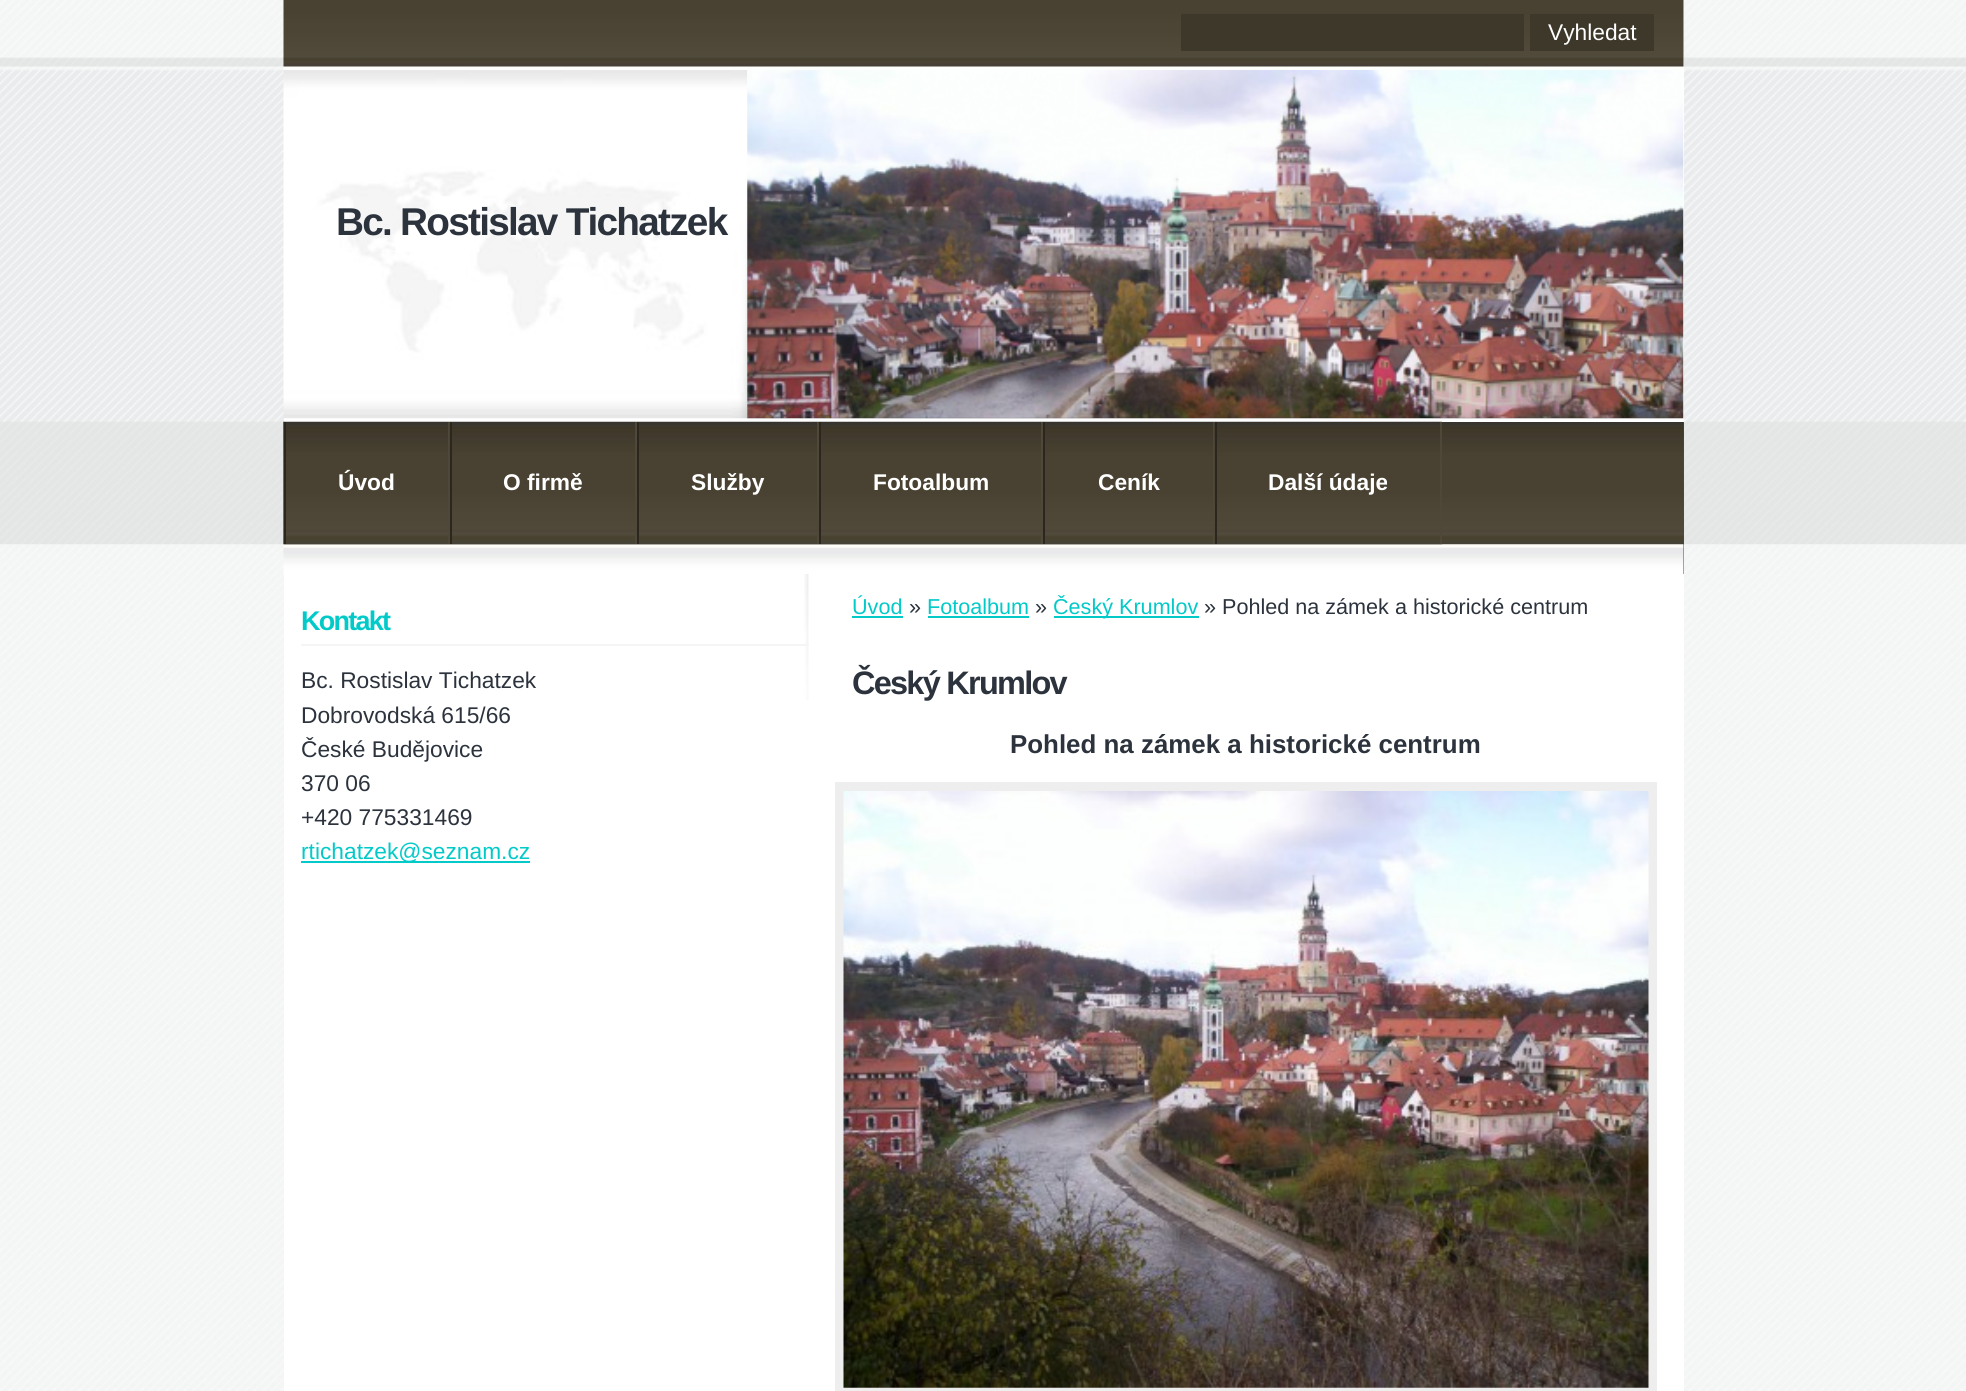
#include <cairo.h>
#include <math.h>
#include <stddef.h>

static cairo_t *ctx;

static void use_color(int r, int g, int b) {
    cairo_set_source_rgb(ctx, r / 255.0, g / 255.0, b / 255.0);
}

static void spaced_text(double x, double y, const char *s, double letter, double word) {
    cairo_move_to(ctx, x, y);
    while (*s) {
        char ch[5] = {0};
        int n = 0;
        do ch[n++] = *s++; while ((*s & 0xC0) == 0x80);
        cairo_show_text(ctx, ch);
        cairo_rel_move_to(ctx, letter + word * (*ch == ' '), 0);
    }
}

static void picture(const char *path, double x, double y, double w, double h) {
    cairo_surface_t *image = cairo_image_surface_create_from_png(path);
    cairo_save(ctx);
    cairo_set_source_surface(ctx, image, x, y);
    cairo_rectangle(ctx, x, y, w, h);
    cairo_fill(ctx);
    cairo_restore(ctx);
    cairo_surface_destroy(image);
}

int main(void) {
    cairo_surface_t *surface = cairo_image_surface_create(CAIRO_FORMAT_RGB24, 1966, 1391);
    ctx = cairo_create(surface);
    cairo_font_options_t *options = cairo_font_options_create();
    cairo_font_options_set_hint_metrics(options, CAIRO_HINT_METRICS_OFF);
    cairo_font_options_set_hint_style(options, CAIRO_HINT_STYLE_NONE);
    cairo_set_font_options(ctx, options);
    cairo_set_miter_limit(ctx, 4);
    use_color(255, 255, 255);
    cairo_paint(ctx);
    picture("img1.png", 0, 544, 1966, 847);
    picture("img2.png", 0, 0, 1966, 545);
    use_color(255, 255, 255);
    cairo_rectangle(ctx, 284, 0, 1400, 1391);
    cairo_fill(ctx);
    picture("img3.png", 804, 574, 5, 126);
    picture("img13.png", 283, 0, 1401, 70);
    use_color(62, 56, 42);
    cairo_rectangle(ctx, 1181, 14, 343, 37);
    cairo_fill(ctx);
    cairo_rectangle(ctx, 1530, 14, 124, 37);
    cairo_fill(ctx);
    cairo_select_font_face(ctx, "Liberation Sans", CAIRO_FONT_SLANT_NORMAL, CAIRO_FONT_WEIGHT_NORMAL);
    cairo_set_font_size(ctx, 22.75);
    use_color(255, 255, 255);
    cairo_move_to(ctx, 1548, 40);
    cairo_show_text(ctx, "Vyhledat");
    use_color(245, 245, 245);
    cairo_rectangle(ctx, 301, 644, 508, 2);
    cairo_fill(ctx);
    cairo_select_font_face(ctx, "Liberation Sans", CAIRO_FONT_SLANT_NORMAL, CAIRO_FONT_WEIGHT_BOLD);
    cairo_set_font_size(ctx, 27);
    use_color(2, 202, 200);
    spaced_text(301, 630, "Kontakt", -1.75, 0);
    cairo_select_font_face(ctx, "Liberation Sans", CAIRO_FONT_SLANT_NORMAL, CAIRO_FONT_WEIGHT_NORMAL);
    cairo_set_font_size(ctx, 22.75);
    use_color(44, 51, 61);
    cairo_move_to(ctx, 301, 688);
    cairo_show_text(ctx, "Bc. Rostislav Tichatzek");
    cairo_move_to(ctx, 301, 723);
    cairo_show_text(ctx, "Dobrovodská 615/66");
    cairo_move_to(ctx, 301, 757);
    cairo_show_text(ctx, "České Budějovice");
    cairo_move_to(ctx, 301, 791);
    cairo_show_text(ctx, "370 06");
    cairo_move_to(ctx, 301, 825);
    cairo_show_text(ctx, "+420 775331469");
    use_color(2, 202, 200);
    cairo_rectangle(ctx, 301, 861, 229, 2);
    cairo_fill(ctx);
    cairo_move_to(ctx, 301, 859);
    cairo_show_text(ctx, "rtichatzek@seznam.cz");
    use_color(81, 74, 58);
    cairo_rectangle(ctx, 284, 422, 1400, 152);
    cairo_fill(ctx);
    picture("img4.png", 283, 421, 1401, 124);
    use_color(255, 255, 255);
    cairo_rectangle(ctx, 284, 421, 1400, 1);
    cairo_fill(ctx);
    picture("img5.png", 283, 544, 1401, 30);
    picture("img6.png", 283, 421, 167, 124);
    use_color(79, 72, 56);
    cairo_rectangle(ctx, 448, 422, 2, 122);
    cairo_fill(ctx);
    use_color(43, 39, 30);
    cairo_rectangle(ctx, 284, 422, 2, 122);
    cairo_fill(ctx);
    cairo_select_font_face(ctx, "Liberation Sans", CAIRO_FONT_SLANT_NORMAL, CAIRO_FONT_WEIGHT_BOLD);
    use_color(255, 255, 255);
    cairo_move_to(ctx, 338, 490);
    cairo_show_text(ctx, "Úvod");
    picture("img7.png", 449, 421, 188, 124);
    use_color(79, 72, 56);
    cairo_rectangle(ctx, 635, 422, 2, 122);
    cairo_fill(ctx);
    use_color(43, 39, 30);
    cairo_rectangle(ctx, 450, 422, 2, 122);
    cairo_fill(ctx);
    use_color(255, 255, 255);
    cairo_move_to(ctx, 503, 490);
    cairo_show_text(ctx, "O firmě");
    picture("img8.png", 637, 421, 182, 124);
    use_color(79, 72, 56);
    cairo_rectangle(ctx, 817, 422, 2, 122);
    cairo_fill(ctx);
    use_color(43, 39, 30);
    cairo_rectangle(ctx, 637, 422, 2, 122);
    cairo_fill(ctx);
    use_color(255, 255, 255);
    cairo_move_to(ctx, 691, 490);
    cairo_show_text(ctx, "Služby");
    picture("img9.png", 819, 421, 224, 124);
    use_color(79, 72, 56);
    cairo_rectangle(ctx, 1041, 422, 2, 122);
    cairo_fill(ctx);
    use_color(43, 39, 30);
    cairo_rectangle(ctx, 819, 422, 2, 122);
    cairo_fill(ctx);
    use_color(255, 255, 255);
    cairo_move_to(ctx, 873, 490);
    cairo_show_text(ctx, "Fotoalbum");
    picture("img10.png", 1043, 421, 172, 124);
    use_color(79, 72, 56);
    cairo_rectangle(ctx, 1213, 422, 2, 122);
    cairo_fill(ctx);
    use_color(43, 39, 30);
    cairo_rectangle(ctx, 1043, 422, 2, 122);
    cairo_fill(ctx);
    use_color(255, 255, 255);
    cairo_move_to(ctx, 1098, 490);
    cairo_show_text(ctx, "Ceník");
    picture("img11.png", 1214, 421, 228, 124);
    use_color(79, 72, 56);
    cairo_rectangle(ctx, 1440, 422, 2, 122);
    cairo_fill(ctx);
    use_color(43, 39, 30);
    cairo_rectangle(ctx, 1215, 422, 2, 122);
    cairo_fill(ctx);
    use_color(255, 255, 255);
    cairo_move_to(ctx, 1268, 490);
    cairo_show_text(ctx, "Další údaje");
    cairo_select_font_face(ctx, "Liberation Sans", CAIRO_FONT_SLANT_NORMAL, CAIRO_FONT_WEIGHT_NORMAL);
    cairo_set_font_size(ctx, 21.6);
    use_color(2, 202, 200);
    cairo_move_to(ctx, 852, 614);
    cairo_show_text(ctx, "Úvod");
    cairo_rectangle(ctx, 852, 616, 51, 2);
    cairo_fill(ctx);
    use_color(44, 51, 61);
    cairo_move_to(ctx, 909, 614);
    cairo_show_text(ctx, "»");
    use_color(2, 202, 200);
    cairo_move_to(ctx, 927, 614);
    cairo_show_text(ctx, "Fotoalbum");
    cairo_rectangle(ctx, 928, 616, 101, 2);
    cairo_fill(ctx);
    use_color(44, 51, 61);
    cairo_move_to(ctx, 1035, 614);
    cairo_show_text(ctx, "»");
    use_color(2, 202, 200);
    cairo_rectangle(ctx, 1054, 616, 145, 2);
    cairo_fill(ctx);
    cairo_move_to(ctx, 1053, 614);
    cairo_show_text(ctx, "Český Krumlov");
    use_color(44, 51, 61);
    cairo_move_to(ctx, 1204, 614);
    cairo_show_text(ctx, "» Pohled na zámek a historické centrum");
    cairo_select_font_face(ctx, "Liberation Sans", CAIRO_FONT_SLANT_NORMAL, CAIRO_FONT_WEIGHT_BOLD);
    cairo_set_font_size(ctx, 32.5);
    spaced_text(852, 694, "Český Krumlov", -1.75, 0);
    cairo_set_font_size(ctx, 25.9);
    cairo_move_to(ctx, 1010, 753);
    cairo_show_text(ctx, "Pohled na zámek a historické centrum");
    cairo_rectangle(ctx, 839.5, 786.5, 813, 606);
    use_color(238, 238, 238);
    cairo_set_line_width(ctx, 9);
    cairo_stroke(ctx);
    picture("img12.png", 843, 791, 806, 597);
    picture("img14.png", 283, 70, 465, 349);
    cairo_set_font_size(ctx, 38.75);
    use_color(44, 51, 61);
    spaced_text(336, 235, "Bc. Rostislav Tichatzek", -1.75, 0);
    picture("img15.png", 747, 70, 937, 349);
    cairo_surface_write_to_png(surface, "result.png");
    cairo_font_options_destroy(options);
    cairo_destroy(ctx);
    cairo_surface_destroy(surface);
    return 0;
}
